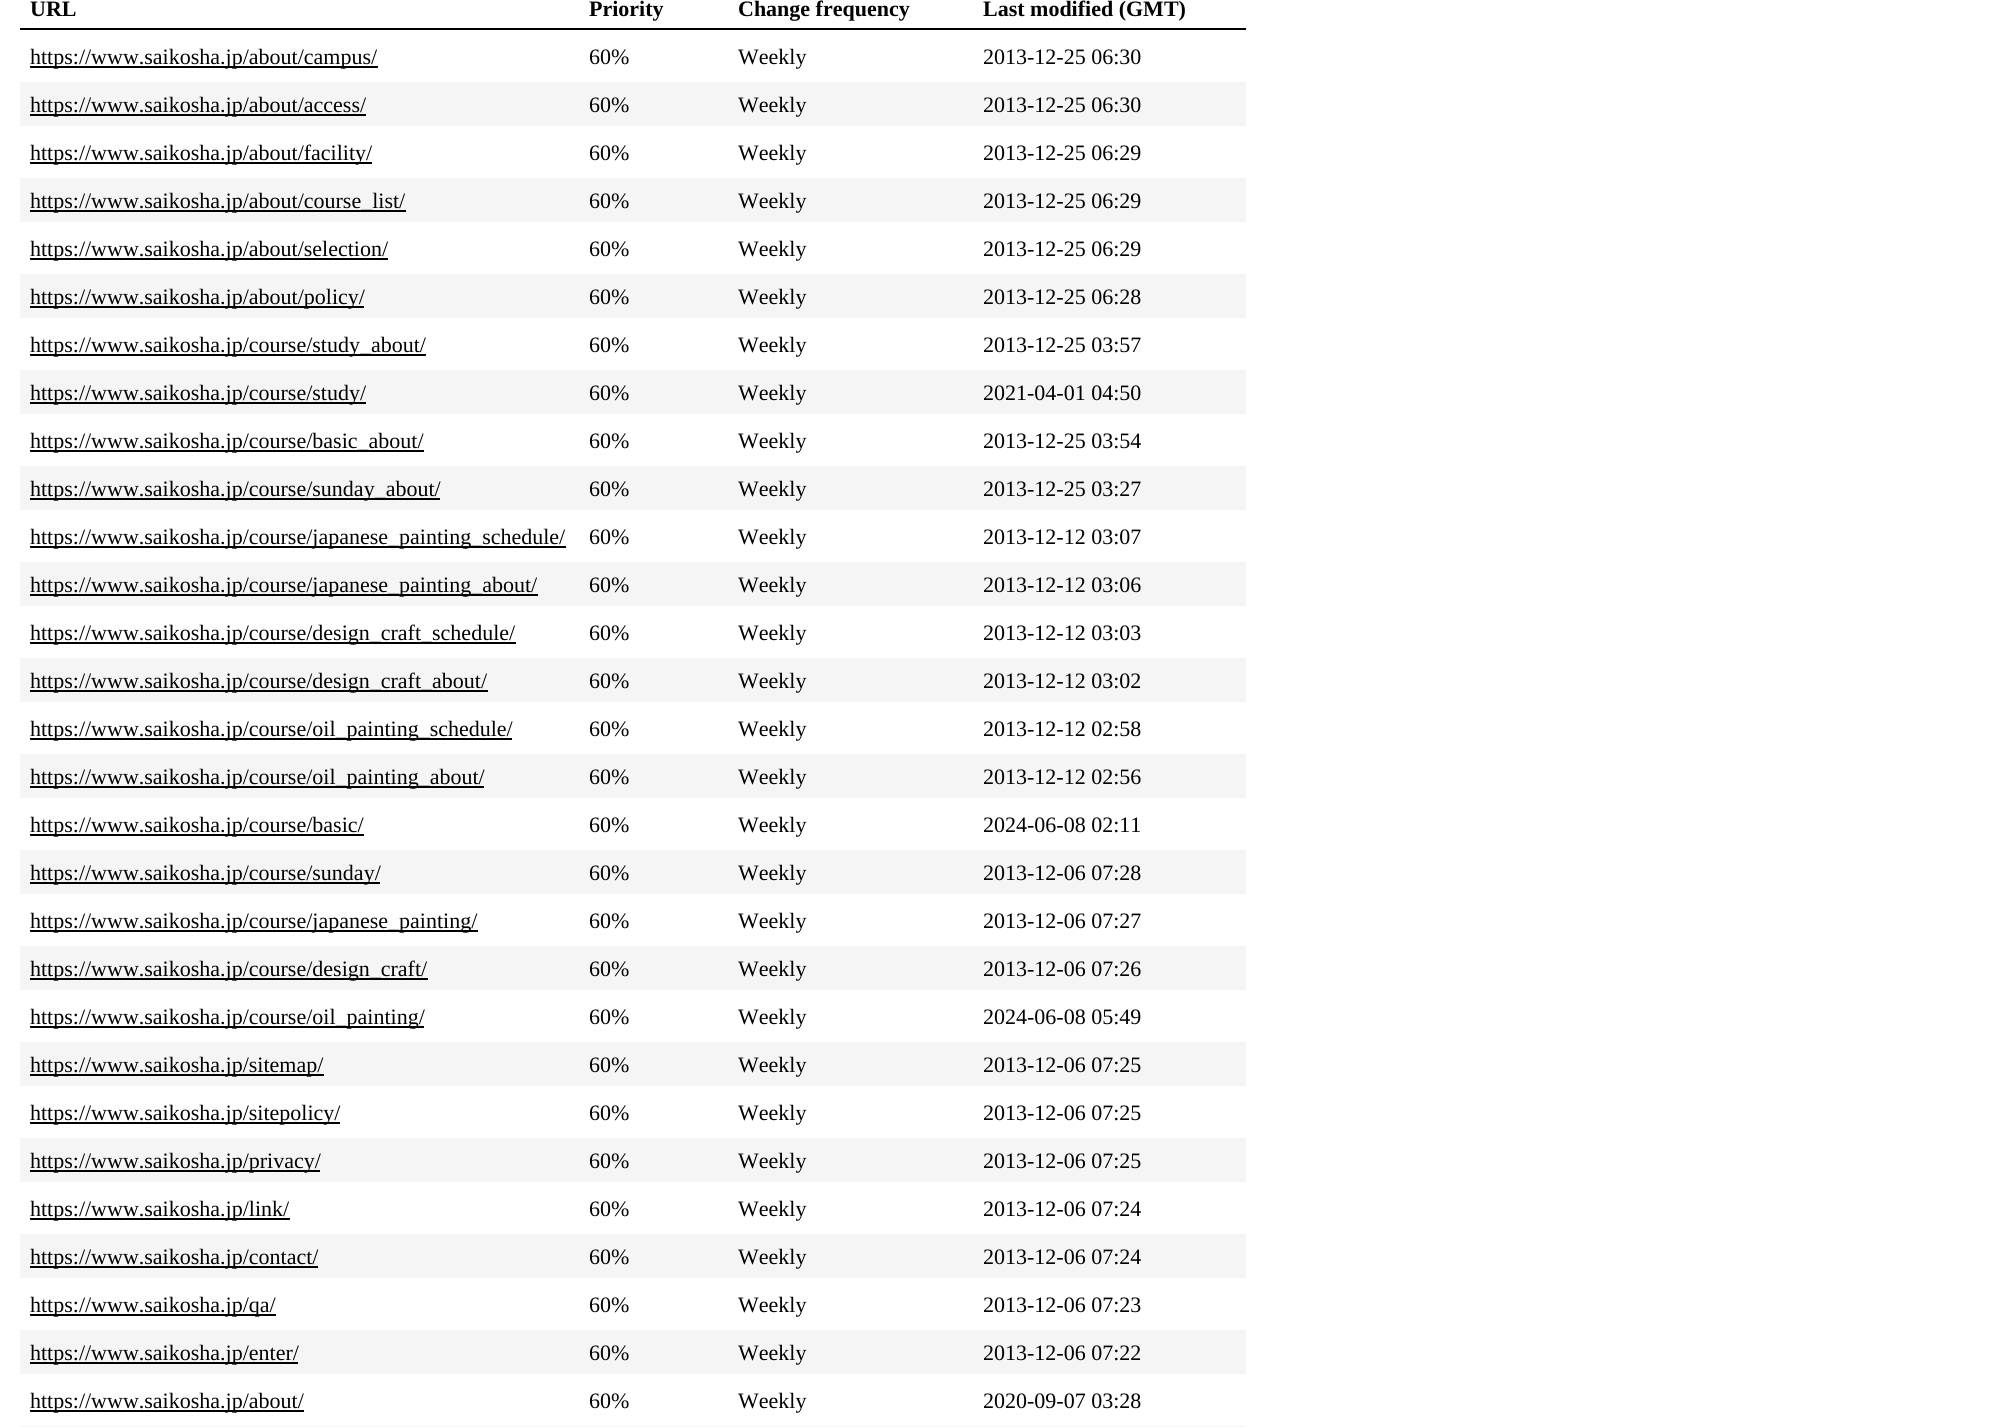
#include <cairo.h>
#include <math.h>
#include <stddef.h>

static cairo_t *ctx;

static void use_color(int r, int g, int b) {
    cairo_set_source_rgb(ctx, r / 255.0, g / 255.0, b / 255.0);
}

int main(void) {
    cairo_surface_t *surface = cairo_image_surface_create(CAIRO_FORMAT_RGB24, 2008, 1427);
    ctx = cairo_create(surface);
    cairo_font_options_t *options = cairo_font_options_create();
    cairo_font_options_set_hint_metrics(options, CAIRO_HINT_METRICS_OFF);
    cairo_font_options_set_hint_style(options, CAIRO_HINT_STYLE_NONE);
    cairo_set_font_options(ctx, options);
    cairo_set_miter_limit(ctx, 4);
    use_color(255, 255, 255);
    cairo_paint(ctx);
    use_color(0, 0, 0);
    cairo_rectangle(ctx, 20, 28, 1226, 2);
    cairo_fill(ctx);
    cairo_select_font_face(ctx, "Liberation Serif", CAIRO_FONT_SLANT_NORMAL, CAIRO_FONT_WEIGHT_BOLD);
    cairo_set_font_size(ctx, 22);
    cairo_move_to(ctx, 30, 16);
    cairo_show_text(ctx, "URL");
    cairo_move_to(ctx, 589, 16);
    cairo_show_text(ctx, "Priority");
    cairo_move_to(ctx, 738, 16);
    cairo_show_text(ctx, "Change frequency");
    cairo_move_to(ctx, 983, 16);
    cairo_show_text(ctx, "Last modified (GMT)");
    cairo_rectangle(ctx, 30, 66, 348, 2);
    cairo_fill(ctx);
    cairo_select_font_face(ctx, "Liberation Serif", CAIRO_FONT_SLANT_NORMAL, CAIRO_FONT_WEIGHT_NORMAL);
    cairo_move_to(ctx, 30, 64);
    cairo_show_text(ctx, "https://www.saikosha.jp/about/campus/");
    cairo_move_to(ctx, 589, 64);
    cairo_show_text(ctx, "60%");
    cairo_move_to(ctx, 738, 64);
    cairo_show_text(ctx, "Weekly");
    cairo_move_to(ctx, 983, 64);
    cairo_show_text(ctx, "2013-12-25 06:30");
    use_color(245, 245, 245);
    cairo_rectangle(ctx, 20, 82, 1226, 44);
    cairo_fill(ctx);
    use_color(0, 0, 0);
    cairo_rectangle(ctx, 30, 114, 336, 2);
    cairo_fill(ctx);
    cairo_move_to(ctx, 30, 112);
    cairo_show_text(ctx, "https://www.saikosha.jp/about/access/");
    cairo_move_to(ctx, 589, 112);
    cairo_show_text(ctx, "60%");
    cairo_move_to(ctx, 738, 112);
    cairo_show_text(ctx, "Weekly");
    cairo_move_to(ctx, 983, 112);
    cairo_show_text(ctx, "2013-12-25 06:30");
    cairo_rectangle(ctx, 30, 162, 342, 2);
    cairo_fill(ctx);
    cairo_move_to(ctx, 30, 160);
    cairo_show_text(ctx, "https://www.saikosha.jp/about/facility/");
    cairo_move_to(ctx, 589, 160);
    cairo_show_text(ctx, "60%");
    cairo_move_to(ctx, 738, 160);
    cairo_show_text(ctx, "Weekly");
    cairo_move_to(ctx, 983, 160);
    cairo_show_text(ctx, "2013-12-25 06:29");
    use_color(245, 245, 245);
    cairo_rectangle(ctx, 20, 178, 1226, 44);
    cairo_fill(ctx);
    use_color(0, 0, 0);
    cairo_rectangle(ctx, 30, 210, 376, 2);
    cairo_fill(ctx);
    cairo_move_to(ctx, 30, 208);
    cairo_show_text(ctx, "https://www.saikosha.jp/about/course_list/");
    cairo_move_to(ctx, 589, 208);
    cairo_show_text(ctx, "60%");
    cairo_move_to(ctx, 738, 208);
    cairo_show_text(ctx, "Weekly");
    cairo_move_to(ctx, 983, 208);
    cairo_show_text(ctx, "2013-12-25 06:29");
    cairo_rectangle(ctx, 30, 258, 358, 2);
    cairo_fill(ctx);
    cairo_move_to(ctx, 30, 256);
    cairo_show_text(ctx, "https://www.saikosha.jp/about/selection/");
    cairo_move_to(ctx, 589, 256);
    cairo_show_text(ctx, "60%");
    cairo_move_to(ctx, 738, 256);
    cairo_show_text(ctx, "Weekly");
    cairo_move_to(ctx, 983, 256);
    cairo_show_text(ctx, "2013-12-25 06:29");
    use_color(245, 245, 245);
    cairo_rectangle(ctx, 20, 274, 1226, 44);
    cairo_fill(ctx);
    use_color(0, 0, 0);
    cairo_rectangle(ctx, 30, 306, 334, 2);
    cairo_fill(ctx);
    cairo_move_to(ctx, 30, 304);
    cairo_show_text(ctx, "https://www.saikosha.jp/about/policy/");
    cairo_move_to(ctx, 589, 304);
    cairo_show_text(ctx, "60%");
    cairo_move_to(ctx, 738, 304);
    cairo_show_text(ctx, "Weekly");
    cairo_move_to(ctx, 983, 304);
    cairo_show_text(ctx, "2013-12-25 06:28");
    cairo_rectangle(ctx, 30, 354, 396, 2);
    cairo_fill(ctx);
    cairo_move_to(ctx, 30, 352);
    cairo_show_text(ctx, "https://www.saikosha.jp/course/study_about/");
    cairo_move_to(ctx, 589, 352);
    cairo_show_text(ctx, "60%");
    cairo_move_to(ctx, 738, 352);
    cairo_show_text(ctx, "Weekly");
    cairo_move_to(ctx, 983, 352);
    cairo_show_text(ctx, "2013-12-25 03:57");
    use_color(245, 245, 245);
    cairo_rectangle(ctx, 20, 370, 1226, 44);
    cairo_fill(ctx);
    use_color(0, 0, 0);
    cairo_rectangle(ctx, 30, 402, 336, 2);
    cairo_fill(ctx);
    cairo_move_to(ctx, 30, 400);
    cairo_show_text(ctx, "https://www.saikosha.jp/course/study/");
    cairo_move_to(ctx, 589, 400);
    cairo_show_text(ctx, "60%");
    cairo_move_to(ctx, 738, 400);
    cairo_show_text(ctx, "Weekly");
    cairo_move_to(ctx, 983, 400);
    cairo_show_text(ctx, "2021-04-01 04:50");
    cairo_rectangle(ctx, 30, 450, 394, 2);
    cairo_fill(ctx);
    cairo_move_to(ctx, 30, 448);
    cairo_show_text(ctx, "https://www.saikosha.jp/course/basic_about/");
    cairo_move_to(ctx, 589, 448);
    cairo_show_text(ctx, "60%");
    cairo_move_to(ctx, 738, 448);
    cairo_show_text(ctx, "Weekly");
    cairo_move_to(ctx, 983, 448);
    cairo_show_text(ctx, "2013-12-25 03:54");
    use_color(245, 245, 245);
    cairo_rectangle(ctx, 20, 466, 1226, 44);
    cairo_fill(ctx);
    use_color(0, 0, 0);
    cairo_rectangle(ctx, 30, 498, 410, 2);
    cairo_fill(ctx);
    cairo_move_to(ctx, 30, 496);
    cairo_show_text(ctx, "https://www.saikosha.jp/course/sunday_about/");
    cairo_move_to(ctx, 589, 496);
    cairo_show_text(ctx, "60%");
    cairo_move_to(ctx, 738, 496);
    cairo_show_text(ctx, "Weekly");
    cairo_move_to(ctx, 983, 496);
    cairo_show_text(ctx, "2013-12-25 03:27");
    cairo_rectangle(ctx, 30, 546, 536, 2);
    cairo_fill(ctx);
    cairo_move_to(ctx, 30, 544);
    cairo_show_text(ctx, "https://www.saikosha.jp/course/japanese_painting_schedule/");
    cairo_move_to(ctx, 589, 544);
    cairo_show_text(ctx, "60%");
    cairo_move_to(ctx, 738, 544);
    cairo_show_text(ctx, "Weekly");
    cairo_move_to(ctx, 983, 544);
    cairo_show_text(ctx, "2013-12-12 03:07");
    use_color(245, 245, 245);
    cairo_rectangle(ctx, 20, 562, 1226, 44);
    cairo_fill(ctx);
    use_color(0, 0, 0);
    cairo_rectangle(ctx, 30, 594, 508, 2);
    cairo_fill(ctx);
    cairo_move_to(ctx, 30, 592);
    cairo_show_text(ctx, "https://www.saikosha.jp/course/japanese_painting_about/");
    cairo_move_to(ctx, 589, 592);
    cairo_show_text(ctx, "60%");
    cairo_move_to(ctx, 738, 592);
    cairo_show_text(ctx, "Weekly");
    cairo_move_to(ctx, 983, 592);
    cairo_show_text(ctx, "2013-12-12 03:06");
    cairo_rectangle(ctx, 30, 642, 486, 2);
    cairo_fill(ctx);
    cairo_move_to(ctx, 30, 640);
    cairo_show_text(ctx, "https://www.saikosha.jp/course/design_craft_schedule/");
    cairo_move_to(ctx, 589, 640);
    cairo_show_text(ctx, "60%");
    cairo_move_to(ctx, 738, 640);
    cairo_show_text(ctx, "Weekly");
    cairo_move_to(ctx, 983, 640);
    cairo_show_text(ctx, "2013-12-12 03:03");
    use_color(245, 245, 245);
    cairo_rectangle(ctx, 20, 658, 1226, 44);
    cairo_fill(ctx);
    use_color(0, 0, 0);
    cairo_rectangle(ctx, 30, 690, 458, 2);
    cairo_fill(ctx);
    cairo_move_to(ctx, 30, 688);
    cairo_show_text(ctx, "https://www.saikosha.jp/course/design_craft_about/");
    cairo_move_to(ctx, 589, 688);
    cairo_show_text(ctx, "60%");
    cairo_move_to(ctx, 738, 688);
    cairo_show_text(ctx, "Weekly");
    cairo_move_to(ctx, 983, 688);
    cairo_show_text(ctx, "2013-12-12 03:02");
    cairo_rectangle(ctx, 30, 738, 482, 2);
    cairo_fill(ctx);
    cairo_move_to(ctx, 30, 736);
    cairo_show_text(ctx, "https://www.saikosha.jp/course/oil_painting_schedule/");
    cairo_move_to(ctx, 589, 736);
    cairo_show_text(ctx, "60%");
    cairo_move_to(ctx, 738, 736);
    cairo_show_text(ctx, "Weekly");
    cairo_move_to(ctx, 983, 736);
    cairo_show_text(ctx, "2013-12-12 02:58");
    use_color(245, 245, 245);
    cairo_rectangle(ctx, 20, 754, 1226, 44);
    cairo_fill(ctx);
    use_color(0, 0, 0);
    cairo_rectangle(ctx, 30, 786, 454, 2);
    cairo_fill(ctx);
    cairo_move_to(ctx, 30, 784);
    cairo_show_text(ctx, "https://www.saikosha.jp/course/oil_painting_about/");
    cairo_move_to(ctx, 589, 784);
    cairo_show_text(ctx, "60%");
    cairo_move_to(ctx, 738, 784);
    cairo_show_text(ctx, "Weekly");
    cairo_move_to(ctx, 983, 784);
    cairo_show_text(ctx, "2013-12-12 02:56");
    cairo_rectangle(ctx, 30, 834, 334, 2);
    cairo_fill(ctx);
    cairo_move_to(ctx, 30, 832);
    cairo_show_text(ctx, "https://www.saikosha.jp/course/basic/");
    cairo_move_to(ctx, 589, 832);
    cairo_show_text(ctx, "60%");
    cairo_move_to(ctx, 738, 832);
    cairo_show_text(ctx, "Weekly");
    cairo_move_to(ctx, 983, 832);
    cairo_show_text(ctx, "2024-06-08 02:11");
    use_color(245, 245, 245);
    cairo_rectangle(ctx, 20, 850, 1226, 44);
    cairo_fill(ctx);
    use_color(0, 0, 0);
    cairo_rectangle(ctx, 30, 882, 350, 2);
    cairo_fill(ctx);
    cairo_move_to(ctx, 30, 880);
    cairo_show_text(ctx, "https://www.saikosha.jp/course/sunday/");
    cairo_move_to(ctx, 589, 880);
    cairo_show_text(ctx, "60%");
    cairo_move_to(ctx, 738, 880);
    cairo_show_text(ctx, "Weekly");
    cairo_move_to(ctx, 983, 880);
    cairo_show_text(ctx, "2013-12-06 07:28");
    cairo_rectangle(ctx, 30, 930, 448, 2);
    cairo_fill(ctx);
    cairo_move_to(ctx, 30, 928);
    cairo_show_text(ctx, "https://www.saikosha.jp/course/japanese_painting/");
    cairo_move_to(ctx, 589, 928);
    cairo_show_text(ctx, "60%");
    cairo_move_to(ctx, 738, 928);
    cairo_show_text(ctx, "Weekly");
    cairo_move_to(ctx, 983, 928);
    cairo_show_text(ctx, "2013-12-06 07:27");
    use_color(245, 245, 245);
    cairo_rectangle(ctx, 20, 946, 1226, 44);
    cairo_fill(ctx);
    use_color(0, 0, 0);
    cairo_rectangle(ctx, 30, 978, 398, 2);
    cairo_fill(ctx);
    cairo_move_to(ctx, 30, 976);
    cairo_show_text(ctx, "https://www.saikosha.jp/course/design_craft/");
    cairo_move_to(ctx, 589, 976);
    cairo_show_text(ctx, "60%");
    cairo_move_to(ctx, 738, 976);
    cairo_show_text(ctx, "Weekly");
    cairo_move_to(ctx, 983, 976);
    cairo_show_text(ctx, "2013-12-06 07:26");
    cairo_rectangle(ctx, 30, 1026, 394, 2);
    cairo_fill(ctx);
    cairo_move_to(ctx, 30, 1024);
    cairo_show_text(ctx, "https://www.saikosha.jp/course/oil_painting/");
    cairo_move_to(ctx, 589, 1024);
    cairo_show_text(ctx, "60%");
    cairo_move_to(ctx, 738, 1024);
    cairo_show_text(ctx, "Weekly");
    cairo_move_to(ctx, 983, 1024);
    cairo_show_text(ctx, "2024-06-08 05:49");
    use_color(245, 245, 245);
    cairo_rectangle(ctx, 20, 1042, 1226, 44);
    cairo_fill(ctx);
    use_color(0, 0, 0);
    cairo_rectangle(ctx, 30, 1074, 294, 2);
    cairo_fill(ctx);
    cairo_move_to(ctx, 30, 1072);
    cairo_show_text(ctx, "https://www.saikosha.jp/sitemap/");
    cairo_move_to(ctx, 589, 1072);
    cairo_show_text(ctx, "60%");
    cairo_move_to(ctx, 738, 1072);
    cairo_show_text(ctx, "Weekly");
    cairo_move_to(ctx, 983, 1072);
    cairo_show_text(ctx, "2013-12-06 07:25");
    cairo_rectangle(ctx, 30, 1122, 310, 2);
    cairo_fill(ctx);
    cairo_move_to(ctx, 30, 1120);
    cairo_show_text(ctx, "https://www.saikosha.jp/sitepolicy/");
    cairo_move_to(ctx, 589, 1120);
    cairo_show_text(ctx, "60%");
    cairo_move_to(ctx, 738, 1120);
    cairo_show_text(ctx, "Weekly");
    cairo_move_to(ctx, 983, 1120);
    cairo_show_text(ctx, "2013-12-06 07:25");
    use_color(245, 245, 245);
    cairo_rectangle(ctx, 20, 1138, 1226, 44);
    cairo_fill(ctx);
    use_color(0, 0, 0);
    cairo_rectangle(ctx, 30, 1170, 290, 2);
    cairo_fill(ctx);
    cairo_move_to(ctx, 30, 1168);
    cairo_show_text(ctx, "https://www.saikosha.jp/privacy/");
    cairo_move_to(ctx, 589, 1168);
    cairo_show_text(ctx, "60%");
    cairo_move_to(ctx, 738, 1168);
    cairo_show_text(ctx, "Weekly");
    cairo_move_to(ctx, 983, 1168);
    cairo_show_text(ctx, "2013-12-06 07:25");
    cairo_rectangle(ctx, 30, 1218, 260, 2);
    cairo_fill(ctx);
    cairo_move_to(ctx, 30, 1216);
    cairo_show_text(ctx, "https://www.saikosha.jp/link/");
    cairo_move_to(ctx, 589, 1216);
    cairo_show_text(ctx, "60%");
    cairo_move_to(ctx, 738, 1216);
    cairo_show_text(ctx, "Weekly");
    cairo_move_to(ctx, 983, 1216);
    cairo_show_text(ctx, "2013-12-06 07:24");
    use_color(245, 245, 245);
    cairo_rectangle(ctx, 20, 1234, 1226, 44);
    cairo_fill(ctx);
    use_color(0, 0, 0);
    cairo_rectangle(ctx, 30, 1266, 288, 2);
    cairo_fill(ctx);
    cairo_move_to(ctx, 30, 1264);
    cairo_show_text(ctx, "https://www.saikosha.jp/contact/");
    cairo_move_to(ctx, 589, 1264);
    cairo_show_text(ctx, "60%");
    cairo_move_to(ctx, 738, 1264);
    cairo_show_text(ctx, "Weekly");
    cairo_move_to(ctx, 983, 1264);
    cairo_show_text(ctx, "2013-12-06 07:24");
    cairo_rectangle(ctx, 30, 1314, 246, 2);
    cairo_fill(ctx);
    cairo_move_to(ctx, 30, 1312);
    cairo_show_text(ctx, "https://www.saikosha.jp/qa/");
    cairo_move_to(ctx, 589, 1312);
    cairo_show_text(ctx, "60%");
    cairo_move_to(ctx, 738, 1312);
    cairo_show_text(ctx, "Weekly");
    cairo_move_to(ctx, 983, 1312);
    cairo_show_text(ctx, "2013-12-06 07:23");
    use_color(245, 245, 245);
    cairo_rectangle(ctx, 20, 1330, 1226, 44);
    cairo_fill(ctx);
    use_color(0, 0, 0);
    cairo_rectangle(ctx, 30, 1362, 268, 2);
    cairo_fill(ctx);
    cairo_move_to(ctx, 30, 1360);
    cairo_show_text(ctx, "https://www.saikosha.jp/enter/");
    cairo_move_to(ctx, 589, 1360);
    cairo_show_text(ctx, "60%");
    cairo_move_to(ctx, 738, 1360);
    cairo_show_text(ctx, "Weekly");
    cairo_move_to(ctx, 983, 1360);
    cairo_show_text(ctx, "2013-12-06 07:22");
    cairo_rectangle(ctx, 30, 1410, 274, 2);
    cairo_fill(ctx);
    cairo_move_to(ctx, 30, 1408);
    cairo_show_text(ctx, "https://www.saikosha.jp/about/");
    cairo_move_to(ctx, 589, 1408);
    cairo_show_text(ctx, "60%");
    cairo_move_to(ctx, 738, 1408);
    cairo_show_text(ctx, "Weekly");
    cairo_move_to(ctx, 983, 1408);
    cairo_show_text(ctx, "2020-09-07 03:28");
    use_color(245, 245, 245);
    cairo_rectangle(ctx, 20, 1426, 1226, 1);
    cairo_fill(ctx);
    cairo_surface_write_to_png(surface, "result.png");
    cairo_font_options_destroy(options);
    cairo_destroy(ctx);
    cairo_surface_destroy(surface);
    return 0;
}
